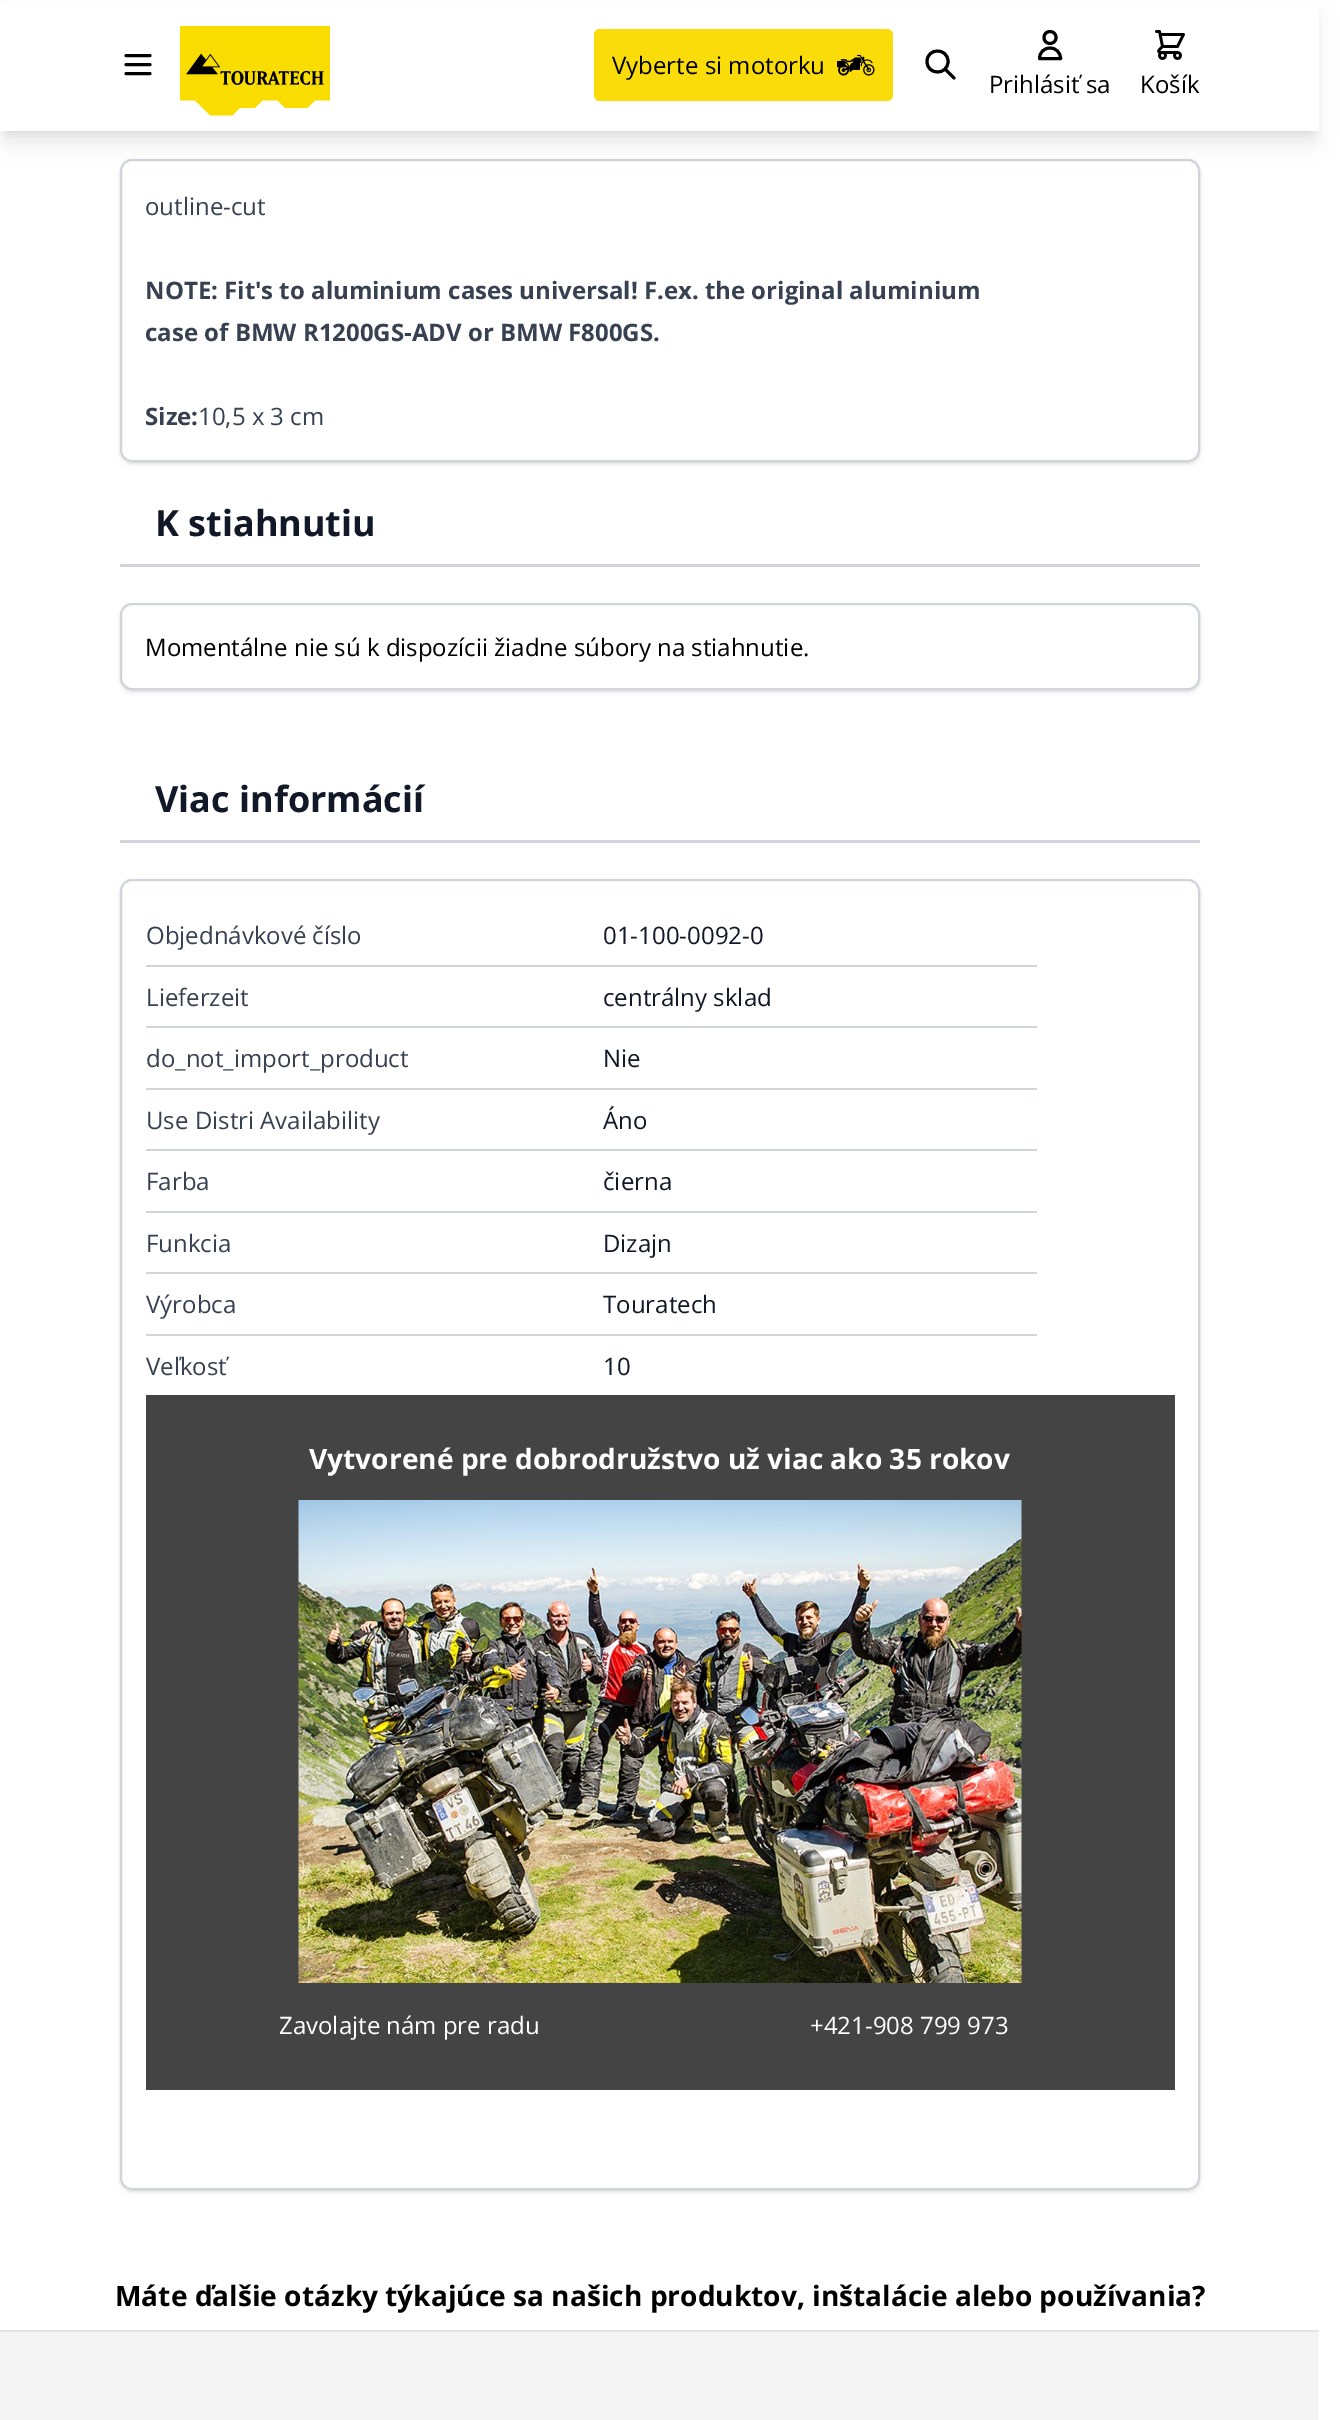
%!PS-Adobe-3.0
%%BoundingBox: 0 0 1340 2420
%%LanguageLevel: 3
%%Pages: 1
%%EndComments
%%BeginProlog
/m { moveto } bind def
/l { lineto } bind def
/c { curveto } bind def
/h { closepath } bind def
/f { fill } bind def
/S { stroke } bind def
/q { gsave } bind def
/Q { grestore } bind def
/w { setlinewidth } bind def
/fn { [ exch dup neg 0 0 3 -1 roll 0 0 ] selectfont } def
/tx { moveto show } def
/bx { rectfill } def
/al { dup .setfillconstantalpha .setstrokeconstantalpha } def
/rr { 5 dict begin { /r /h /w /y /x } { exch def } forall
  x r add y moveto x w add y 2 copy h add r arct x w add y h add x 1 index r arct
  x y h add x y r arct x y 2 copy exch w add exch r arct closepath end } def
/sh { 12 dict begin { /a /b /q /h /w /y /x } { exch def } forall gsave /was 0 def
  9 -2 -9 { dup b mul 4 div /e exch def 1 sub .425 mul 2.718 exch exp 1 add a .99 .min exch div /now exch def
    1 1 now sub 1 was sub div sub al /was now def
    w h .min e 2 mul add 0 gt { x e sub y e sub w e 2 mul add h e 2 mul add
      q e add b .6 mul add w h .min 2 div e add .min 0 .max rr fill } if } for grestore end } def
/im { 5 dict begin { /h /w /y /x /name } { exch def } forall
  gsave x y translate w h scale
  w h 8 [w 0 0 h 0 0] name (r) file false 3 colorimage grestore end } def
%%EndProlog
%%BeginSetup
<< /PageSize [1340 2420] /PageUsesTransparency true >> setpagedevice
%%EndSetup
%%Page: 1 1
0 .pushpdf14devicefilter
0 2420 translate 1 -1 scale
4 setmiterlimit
1 setgray
0 0 1340 2420 bx
0 setgray
6 11 1307 120 0 4.5 0.1 sh
122 162 1077 300 11 1.5 0.1 sh
120 161 1080 303 12 2 0.1 sh
1 setgray
121 160 1078 301 11 rr q f Q
0.82 0.835 0.859 setrgbcolor
2 w
S
0 setgray
5 18 1309 123 0 11 0.1 sh
1 setgray
0 2 1319 129 bx
0 setgray
3 w
1 setlinecap
1 setlinejoin
126 55.5 m 150 55.5 l 126 64.5 m 150 64.5 l 126 73.5 m 150 73.5 l S
(image0.raw) 180 26 150 90 im
0.976 0.863 0.039 setrgbcolor
594 29 299 72 6 rr f
/OpenSans-Regular 24 fn
0 setgray
(Vyberte si motorku) 612 74 tx
(image1.raw) 837 54 38 22 im
954 78 m 945 69 l 948 61.5 m 948 75.5 927 75.5 927 61.5 c 927 47.5 948 47.5 948 61.5 c h S
1056 37.5 m 1056 45.5 1044 45.5 1044 37.5 c 1044 29.5 1056 29.5 1056 37.5 c h 1050 48 m 1044 48 1039.5 52.5 1039.5 58.5 c 1060.5 58.5 l 1060.5 52.5 1056 48 1050 48 c h S
(Prihlásiť sa) 989 93 tx
(image2.raw) 1155 30 30 30 im
(Košík) 1140 93 tx
0.216 0.255 0.318 setrgbcolor
(outline-cut) 145 215 tx
/OpenSans-Bold 24 fn
(NOTE: Fit's to aluminium cases universal! F.ex. the original aluminium) 145 299 tx
(case of BMW R1200GS-ADV or BMW F800GS.) 145 341 tx
(Size:) 145 425 tx
/OpenSans-Regular 24 fn
(10,5 x 3 cm) 198 425 tx
0.82 0.835 0.859 setrgbcolor
120 564 1080 3 bx
/OpenSans-Bold 36 fn
0.067 0.094 0.153 setrgbcolor
(K stiahnutiu) 155 536 tx
0 setgray
122 606 1077 84 11 1.5 0.1 sh
120 605 1080 87 12 2 0.1 sh
1 setgray
121 604 1078 85 11 rr q f Q
0.82 0.835 0.859 setrgbcolor
2 w
0 setlinecap
0 setlinejoin
S
/OpenSans-Regular 24 fn
0 setgray
(Momentálne nie sú k dispozícii žiadne súbory na stiahnutie.) 145 656 tx
0.82 0.835 0.859 setrgbcolor
120 840 1080 3 bx
/OpenSans-Bold 36 fn
0.067 0.094 0.153 setrgbcolor
(Viac informácií) 155 812 tx
0 setgray
122 882 1077 1308 11 1.5 0.1 sh
120 881 1080 1311 12 2 0.1 sh
1 setgray
121 880 1078 1309 11 rr q f Q
0.82 0.835 0.859 setrgbcolor
S
146 965 891 2 bx
/OpenSans-Regular 24 fn
0.216 0.255 0.318 setrgbcolor
(Objednávkové číslo) 146 944 tx
0.067 0.094 0.153 setrgbcolor
(01-100-0092-0) 603 944 tx
0.82 0.835 0.859 setrgbcolor
146 1026 891 2 bx
0.216 0.255 0.318 setrgbcolor
(Lieferzeit) 146 1006 tx
0.067 0.094 0.153 setrgbcolor
(centrálny sklad) 603 1006 tx
0.82 0.835 0.859 setrgbcolor
146 1088 891 2 bx
0.216 0.255 0.318 setrgbcolor
(do_not_import_product) 146 1067 tx
0.067 0.094 0.153 setrgbcolor
(Nie) 603 1067 tx
0.82 0.835 0.859 setrgbcolor
146 1149 891 2 bx
0.216 0.255 0.318 setrgbcolor
(Use Distri Availability) 146 1129 tx
0.067 0.094 0.153 setrgbcolor
(Áno) 603 1129 tx
0.82 0.835 0.859 setrgbcolor
146 1211 891 2 bx
0.216 0.255 0.318 setrgbcolor
(Farba) 146 1190 tx
0.067 0.094 0.153 setrgbcolor
(čierna) 603 1190 tx
0.82 0.835 0.859 setrgbcolor
146 1272 891 2 bx
0.216 0.255 0.318 setrgbcolor
(Funkcia) 146 1252 tx
0.067 0.094 0.153 setrgbcolor
(Dizajn) 603 1252 tx
0.82 0.835 0.859 setrgbcolor
146 1334 891 2 bx
0.216 0.255 0.318 setrgbcolor
(Výrobca) 146 1313 tx
0.067 0.094 0.153 setrgbcolor
(Touratech) 603 1313 tx
0.216 0.255 0.318 setrgbcolor
(Veľkosť) 146 1375 tx
0.067 0.094 0.153 setrgbcolor
(10) 603 1375 tx
0.267 setgray
146 1395 1029 695 bx
/OpenSans-Bold 28.1 fn
1 setgray
(Vytvorené pre dobrodružstvo už viac ako 35 rokov) 309 1469 tx
(image3.raw) 298 1500 724 483 im
/OpenSans-Regular 24 fn
(Zavolajte nám pre radu) 279 2034 tx
(+421-908 799 973) 810 2034 tx
/OpenSans-Bold 28.1 fn
0 setgray
(Máte ďalšie otázky týkajúce sa našich produktov, inštalácie alebo používania?) 115 2306 tx
0.957 0.957 0.961 setrgbcolor
0 2332 1319 88 bx
0.894 0.894 0.906 setrgbcolor
0 2330 1319 2 bx
.poppdf14devicefilter showpage
%%EOF
